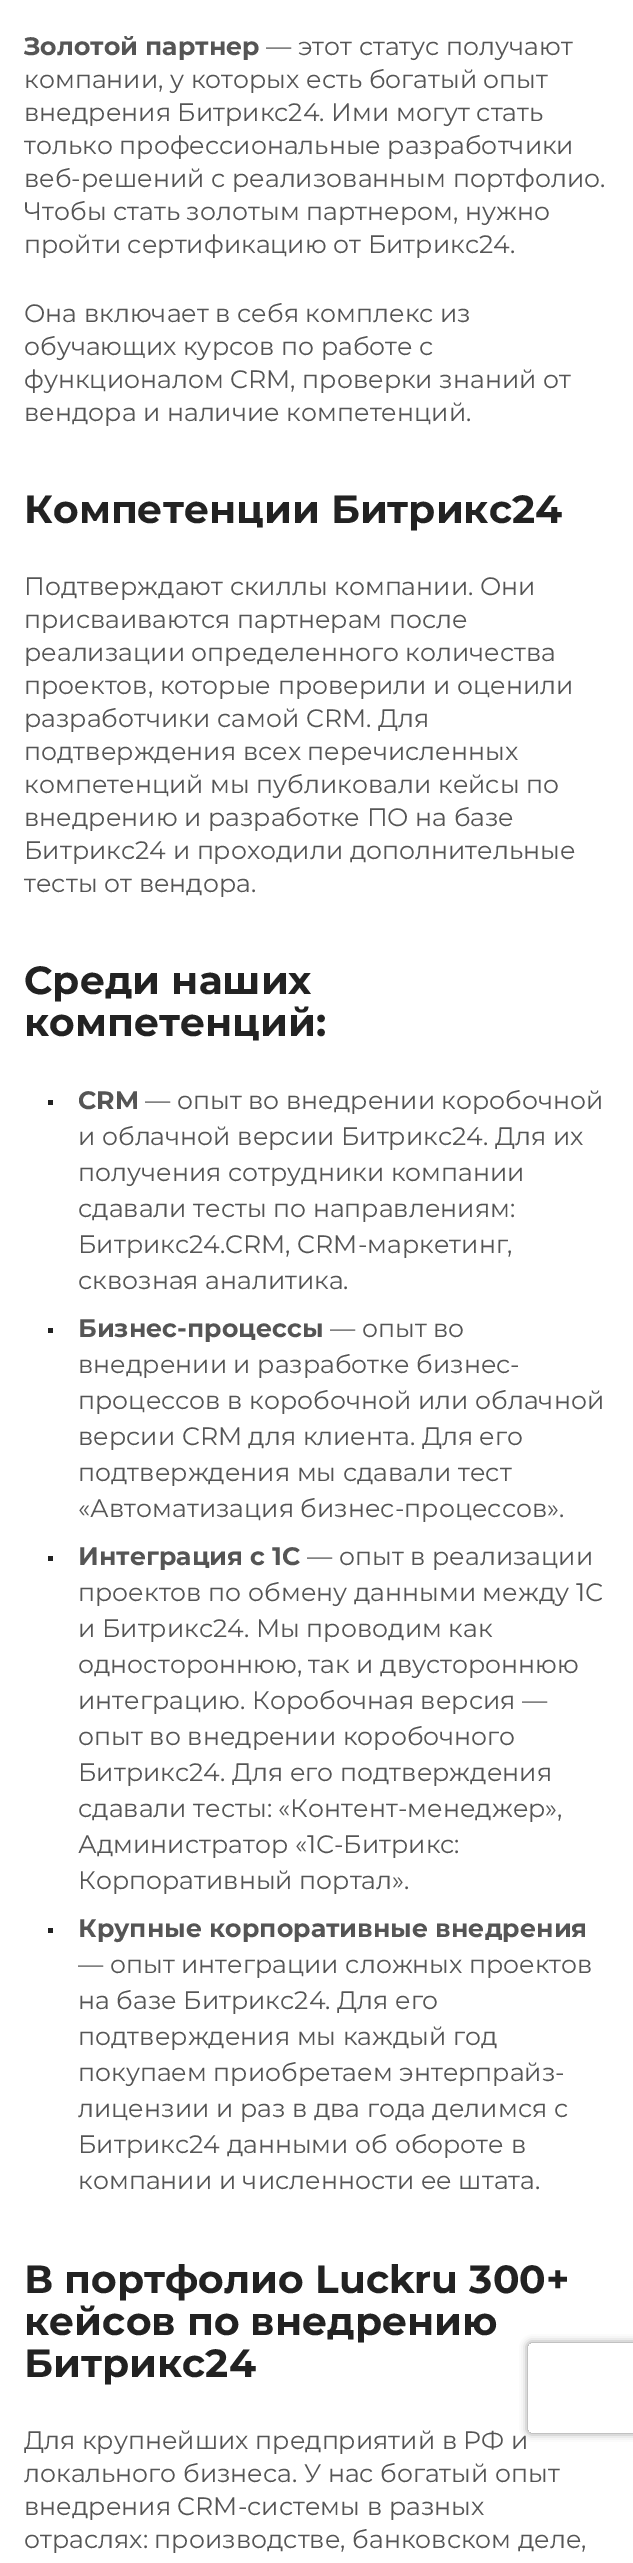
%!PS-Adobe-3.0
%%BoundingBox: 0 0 633 2563
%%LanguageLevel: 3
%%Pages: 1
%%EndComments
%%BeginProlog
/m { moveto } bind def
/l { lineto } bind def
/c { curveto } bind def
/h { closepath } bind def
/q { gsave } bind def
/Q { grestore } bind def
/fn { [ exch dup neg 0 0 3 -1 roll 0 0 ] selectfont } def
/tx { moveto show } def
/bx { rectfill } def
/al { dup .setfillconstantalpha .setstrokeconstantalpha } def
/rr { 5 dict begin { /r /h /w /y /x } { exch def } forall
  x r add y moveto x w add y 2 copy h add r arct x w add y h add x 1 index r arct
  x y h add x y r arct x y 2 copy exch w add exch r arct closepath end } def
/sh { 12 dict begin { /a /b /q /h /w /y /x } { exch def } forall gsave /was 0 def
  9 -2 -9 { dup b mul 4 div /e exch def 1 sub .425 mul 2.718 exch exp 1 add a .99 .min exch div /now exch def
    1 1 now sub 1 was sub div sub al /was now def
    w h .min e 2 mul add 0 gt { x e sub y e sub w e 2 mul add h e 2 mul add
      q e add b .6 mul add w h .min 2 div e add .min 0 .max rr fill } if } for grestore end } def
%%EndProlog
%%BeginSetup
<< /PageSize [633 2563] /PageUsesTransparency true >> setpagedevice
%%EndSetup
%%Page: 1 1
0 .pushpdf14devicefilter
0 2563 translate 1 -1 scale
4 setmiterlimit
1 setgray
0 0 633 2563 bx
/Montserrat-Bold 25.2 fn
0.333 setgray
(Золотой партнер) 24 55 tx
/Montserrat-Regular 25.2 fn
(— этот статус получают) 266 55 tx
(компании, у которых есть богатый опыт) 24 88 tx
(внедрения Битрикс24. Ими могут стать) 24 121 tx
(только профессиональные разработчики) 24 154 tx
(веб-решений с реализованным портфолио.) 24 187 tx
(Чтобы стать золотым партнером, нужно) 24 220 tx
(пройти сертификацию от Битрикс24.) 24 253 tx
(Она включает в себя комплекс из) 24 322 tx
(обучающих курсов по работе с) 24 355 tx
(функционалом CRM, проверки знаний от) 24 388 tx
(вендора и наличие компетенций.) 24 421 tx
/Montserrat-Bold 39.25 fn
0.133 setgray
(Компетенции Битрикс24) 24 523 tx
/Montserrat-Regular 25.2 fn
0.333 setgray
(Подтверждают скиллы компании. Они) 24 595 tx
(присваиваются партнерам после) 24 628 tx
(реализации определенного количества) 24 661 tx
(проектов, которые проверили и оценили) 24 694 tx
(разработчики самой CRM. Для) 24 727 tx
(подтверждения всех перечисленных) 24 760 tx
(компетенций мы публиковали кейсы по) 24 793 tx
(внедрению и разработке ПО на базе) 24 826 tx
(Битрикс24 и проходили дополнительные) 24 859 tx
(тесты от вендора.) 24 892 tx
/Montserrat-Bold 39.25 fn
0.133 setgray
(Среди наших) 24 994 tx
(компетенций:) 24 1036 tx
48 1100 5 5 bx
/Montserrat-Bold 25.2 fn
0.333 setgray
(CRM) 78 1109 tx
/Montserrat-Regular 25.2 fn
(— опыт во внедрении коробочной) 145 1109 tx
(и облачной версии Битрикс24. Для их) 78 1145 tx
(получения сотрудники компании) 78 1181 tx
(сдавали тесты по направлениям:) 78 1217 tx
(Битрикс24.CRM, CRM-маркетинг,) 78 1253 tx
(сквозная аналитика.) 78 1289 tx
0.133 setgray
48 1328 5 5 bx
/Montserrat-Bold 25.2 fn
0.333 setgray
(Бизнес-процессы) 78 1337 tx
/Montserrat-Regular 25.2 fn
(— опыт во) 330 1337 tx
(внедрении и разработке бизнес-) 78 1373 tx
(процессов в коробочной или облачной) 78 1409 tx
(версии CRM для клиента. Для его) 78 1445 tx
(подтверждения мы сдавали тест) 78 1481 tx
(«Автоматизация бизнес-процессов».) 78 1517 tx
0.133 setgray
48 1556 5 5 bx
/Montserrat-Bold 25.2 fn
0.333 setgray
(Интеграция с 1С) 78 1565 tx
/Montserrat-Regular 25.2 fn
(— опыт в реализации) 307 1565 tx
(проектов по обмену данными между 1С) 78 1601 tx
(и Битрикс24. Мы проводим как) 78 1637 tx
(одностороннюю, так и двустороннюю) 78 1673 tx
(интеграцию. Коробочная версия —) 78 1709 tx
(опыт во внедрении коробочного) 78 1745 tx
(Битрикс24. Для его подтверждения) 78 1781 tx
(сдавали тесты: «Контент-менеджер»,) 78 1817 tx
(Администратор «1С-Битрикс:) 78 1853 tx
(Корпоративный портал».) 78 1889 tx
0.133 setgray
48 1928 5 5 bx
/Montserrat-Bold 25.2 fn
0.333 setgray
(Крупные корпоративные внедрения) 78 1937 tx
/Montserrat-Regular 25.2 fn
(— опыт интеграции сложных проектов) 78 1973 tx
(на базе Битрикс24. Для его) 78 2009 tx
(подтверждения мы каждый год) 78 2045 tx
(покупаем приобретаем энтерпрайз-) 78 2081 tx
(лицензии и раз в два года делимся с) 78 2117 tx
(Битрикс24 данными об обороте в) 78 2153 tx
(компании и численности ее штата.) 78 2189 tx
/Montserrat-Bold 39.25 fn
0.133 setgray
(В портфолио Luckru 300+) 24 2293 tx
(кейсов по внедрению) 24 2335 tx
(Битрикс24) 24 2377 tx
/Montserrat-Regular 25.2 fn
0.333 setgray
(Для крупнейших предприятий в РФ и) 24 2449 tx
(локального бизнеса. У нас богатый опыт) 24 2482 tx
(внедрения CRM-системы в разных) 24 2515 tx
(отраслях: производстве, банковском деле,) 24 2548 tx
q
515 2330 m 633 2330 l 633 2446 l 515 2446 l h 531 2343 m 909 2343 l 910.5 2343 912 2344.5 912 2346 c 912 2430 l 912 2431.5 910.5 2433 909 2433 c 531 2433 l 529.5 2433 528 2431.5 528 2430 c 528 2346 l 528 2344.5 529.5 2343 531 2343 c h eoclip newpath
0.502 setgray
528 2343 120 90 3 4 1 sh
Q
.poppdf14devicefilter showpage
%%EOF
